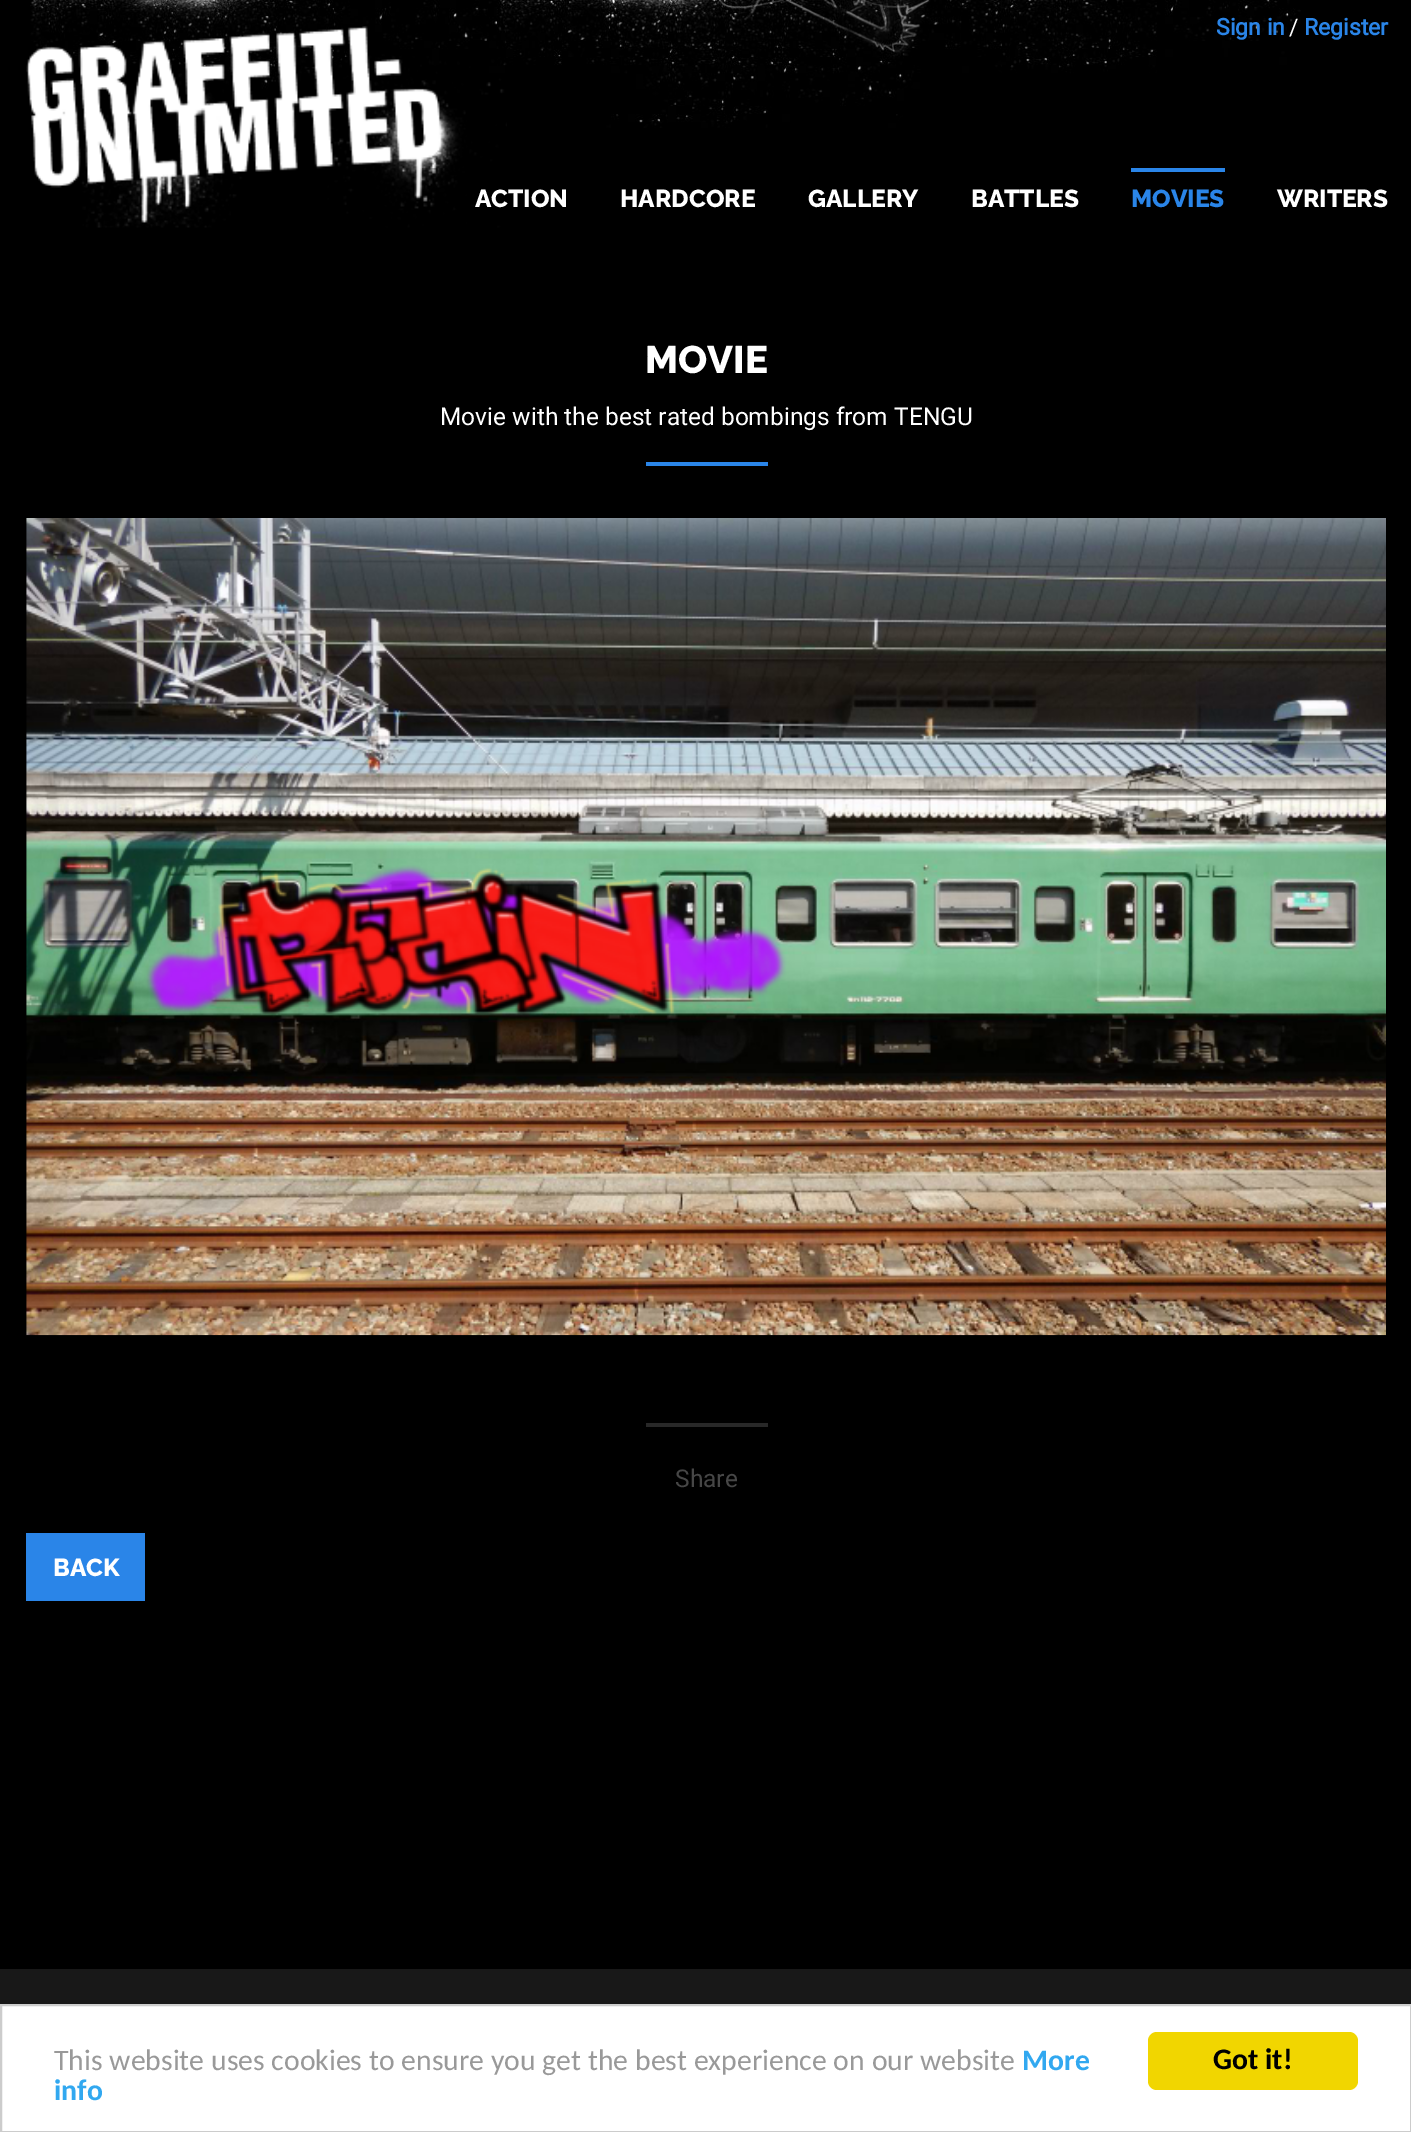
%!PS-Adobe-3.0
%%BoundingBox: 0 0 1411 2132
%%LanguageLevel: 3
%%Pages: 1
%%EndComments
%%BeginProlog
/m { moveto } bind def
/l { lineto } bind def
/h { closepath } bind def
/f { fill } bind def
/S { stroke } bind def
/q { gsave } bind def
/Q { grestore } bind def
/w { setlinewidth } bind def
/fn { [ exch dup neg 0 0 3 -1 roll 0 0 ] selectfont } def
/tx { moveto show } def
/bx { rectfill } def
/al { dup .setfillconstantalpha .setstrokeconstantalpha } def
/rr { 5 dict begin { /r /h /w /y /x } { exch def } forall
  x r add y moveto x w add y 2 copy h add r arct x w add y h add x 1 index r arct
  x y h add x y r arct x y 2 copy exch w add exch r arct closepath end } def
/im { 5 dict begin { /h /w /y /x /name } { exch def } forall
  gsave x y translate w h scale
  w h 8 [w 0 0 h 0 0] name (r) file false 3 colorimage grestore end } def
%%EndProlog
%%BeginSetup
<< /PageSize [1411 2132] /PageUsesTransparency true >> setpagedevice
%%EndSetup
%%Page: 1 1
0 .pushpdf14devicefilter
0 2132 translate 1 -1 scale
4 setmiterlimit
0 setgray
0 0 1411 2132 bx
(image0.raw) 30 0 1271 128 im
(image1.raw) 26 26 481 202 im
/Roboto-Bold 23 fn
0.165 0.522 0.91 setrgbcolor
(Sign in) 1216 35 tx
/Roboto-Regular 23 fn
1 setgray
(/) 1289 35 tx
/Roboto-Bold 23 fn
0.165 0.522 0.91 setrgbcolor
(Register) 1304 35 tx
0.3 al
0 setgray
422 168 31 39 bx
/Raleway-ExtraBold 24.5 fn
1 al
1 setgray
(ACTION) 475 207 tx
(HARDCORE) 620 207 tx
(GALLERY) 808 207 tx
(BATTLES) 971 207 tx
0.165 0.522 0.91 setrgbcolor
1131 168 94 4 bx
(MOVIES) 1131 207 tx
1 setgray
(WRITERS) 1277 207 tx
/Raleway-ExtraBold 38.5 fn
(MOVIE) 645 373 tx
/Roboto-Regular 24.5 fn
(Movie with the best rated bombings from TENGU) 440 425 tx
0.165 0.522 0.91 setrgbcolor
646 462 122 4 bx
(image2.raw) 26 518 1360 818 im
0.157 setgray
646 1423 122 4 bx
0.275 setgray
(Share) 675 1487 tx
0.165 0.522 0.91 setrgbcolor
26 1533 119 68 bx
/Raleway-ExtraBold 24.5 fn
1 setgray
(BACK) 53 1576 tx
0.094 setgray
0 1969 1411 35 bx
1 setgray
1 2005 m 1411 2005 l 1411 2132 l 1 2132 l h q f Q
0.8 setgray
2 w
S
/Carlito-Regular 29.75 fn
0.6 setgray
(This website uses cookies to ensure you get the best experience on our website) 54 2070 tx
/Carlito-Bold 29.75 fn
0.192 0.659 0.941 setrgbcolor
(More) 1022 2070 tx
(info) 54 2100 tx
0.945 0.839 0 setrgbcolor
1148 2032 210 58 9 rr f
0 setgray
(Got it!) 1213 2069 tx
.poppdf14devicefilter showpage
%%EOF
